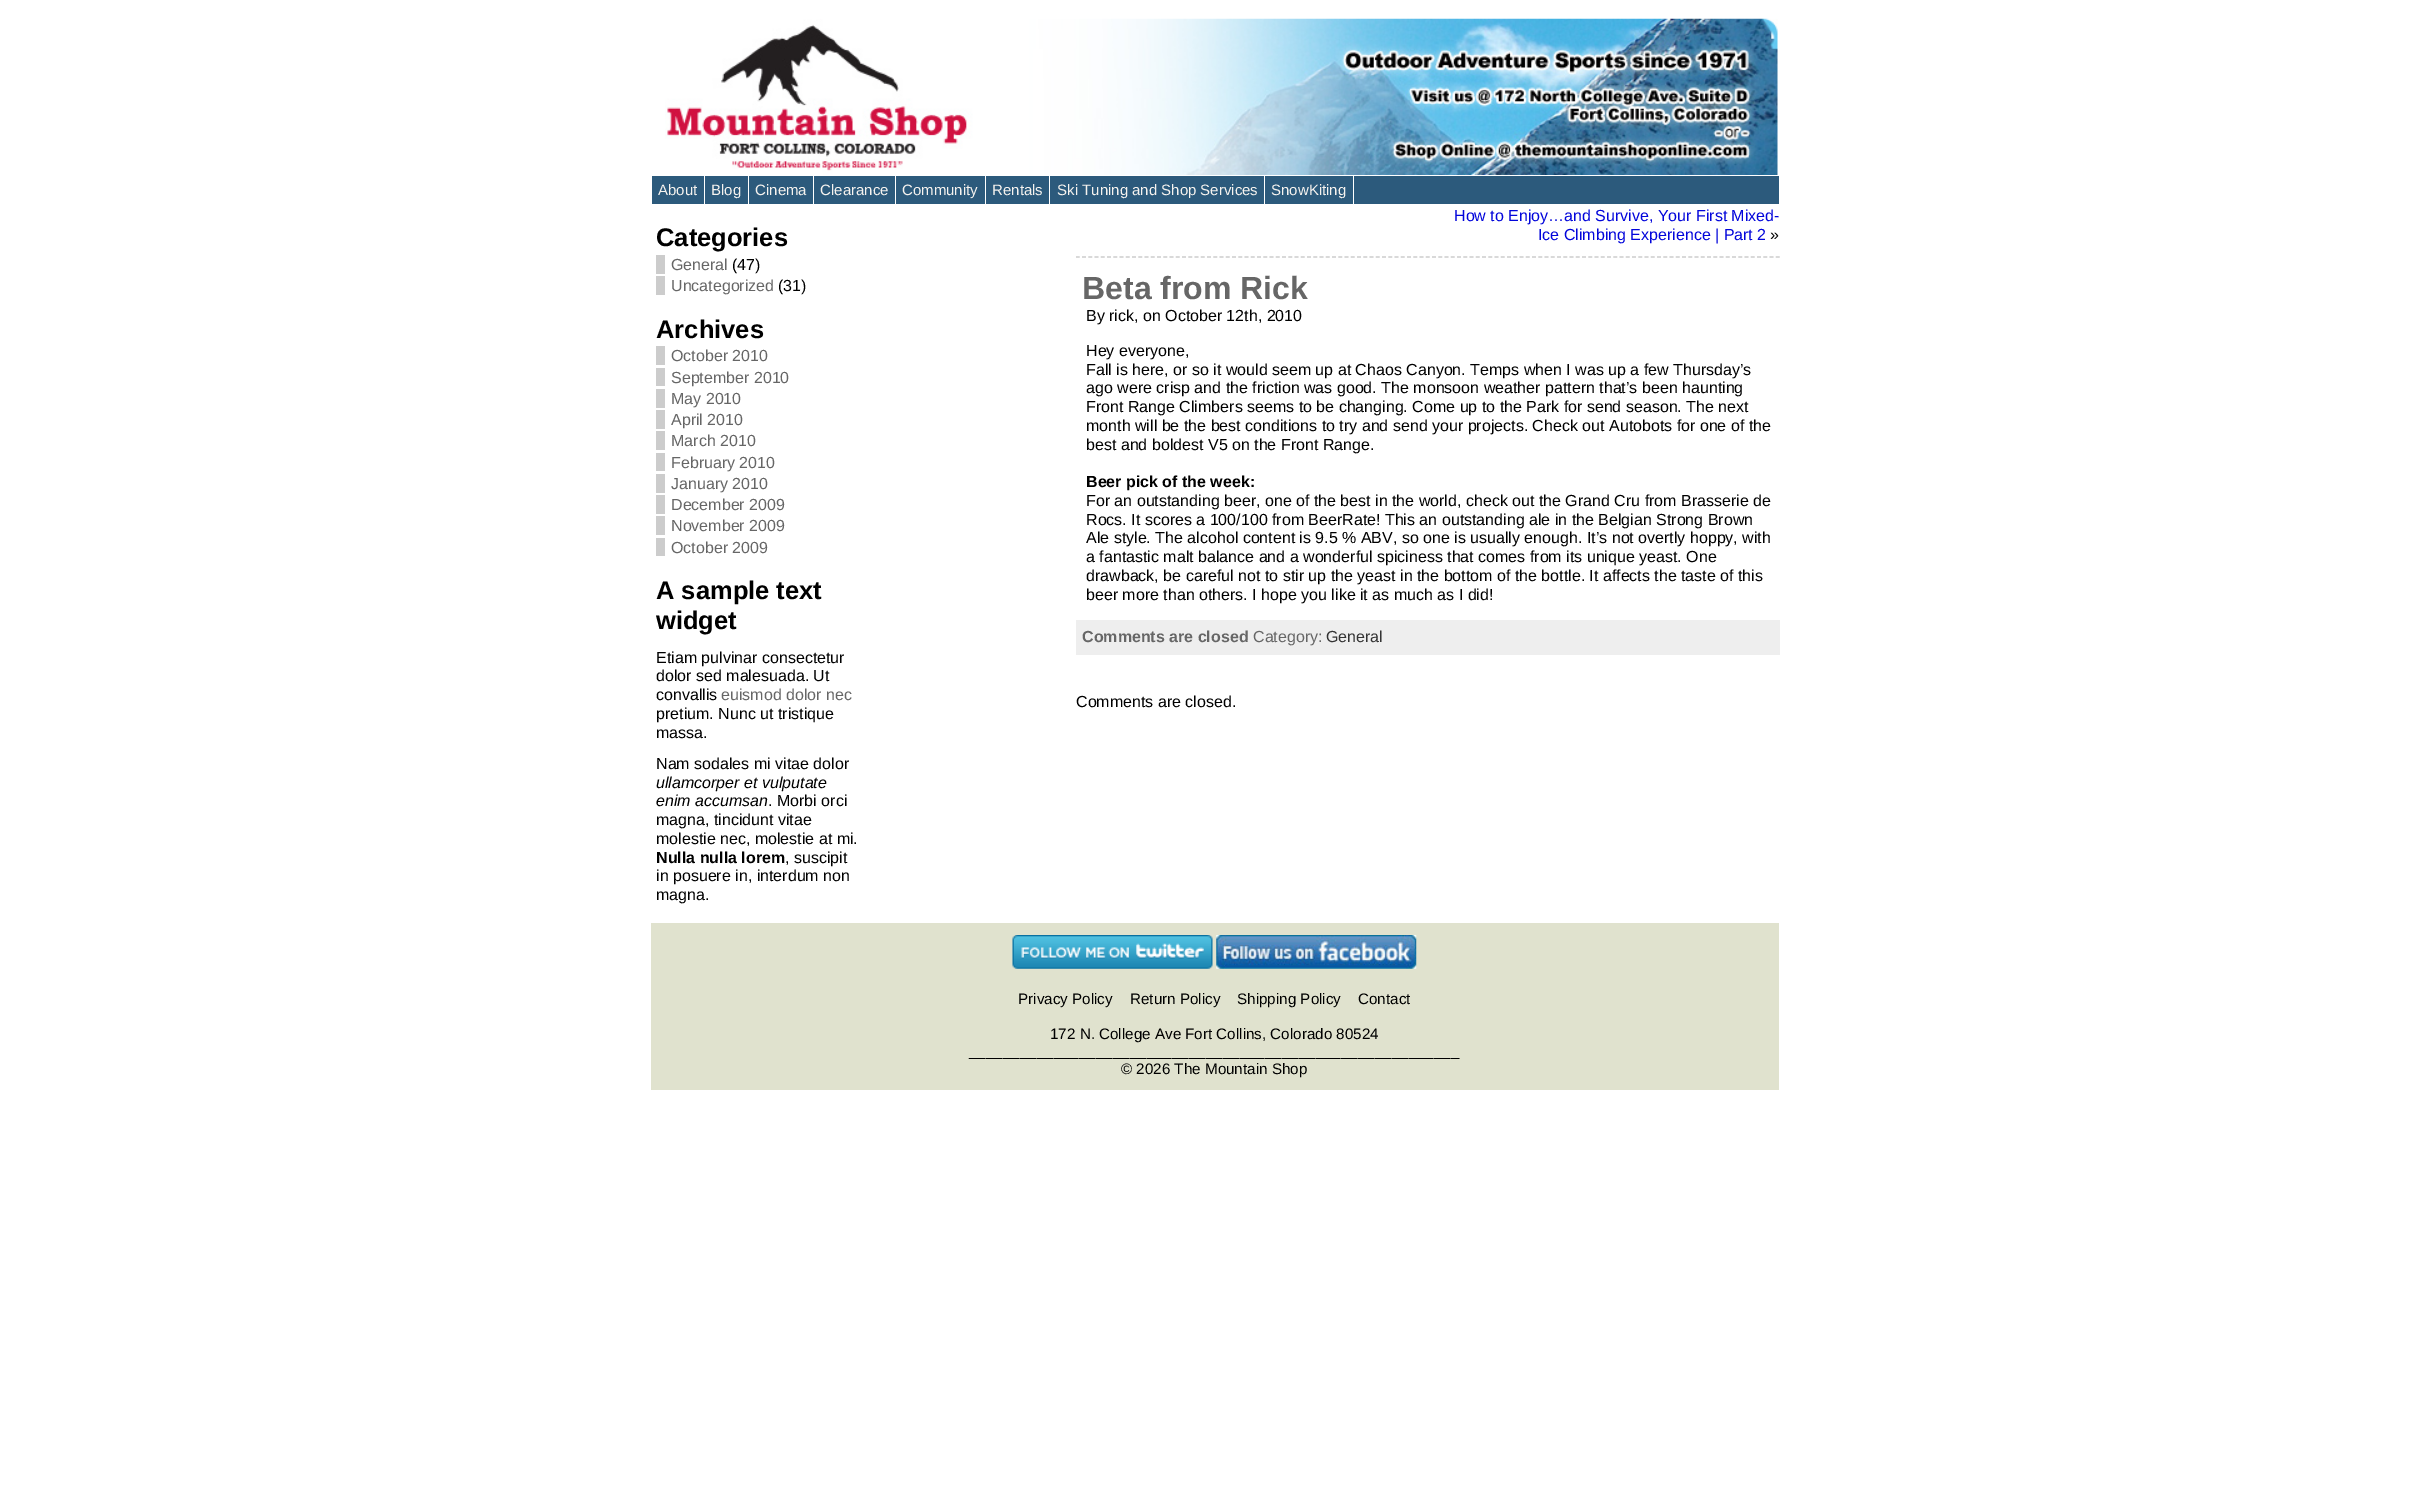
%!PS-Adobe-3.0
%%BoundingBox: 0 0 2428 1493
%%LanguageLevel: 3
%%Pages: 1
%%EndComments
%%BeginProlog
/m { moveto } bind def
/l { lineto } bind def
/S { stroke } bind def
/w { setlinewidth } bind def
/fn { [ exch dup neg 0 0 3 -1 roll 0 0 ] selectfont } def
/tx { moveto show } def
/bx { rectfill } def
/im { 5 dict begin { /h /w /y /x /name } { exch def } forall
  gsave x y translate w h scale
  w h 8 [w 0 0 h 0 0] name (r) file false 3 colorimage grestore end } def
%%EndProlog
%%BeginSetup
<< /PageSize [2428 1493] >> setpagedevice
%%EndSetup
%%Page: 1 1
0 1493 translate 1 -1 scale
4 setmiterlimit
1 setgray
0 0 2428 1493 bx
(image0.raw) 665 18 1113 157 im
0.173 0.353 0.486 setrgbcolor
1354 176 425 28 bx
652 176 52 28 bx
/LiberationSans-Regular 15 fn
0.965 0.953 0.937 setrgbcolor
(About) 658 195 tx
0.173 0.353 0.486 setrgbcolor
705 176 43 28 bx
0.965 0.953 0.937 setrgbcolor
(Blog) 711 195 tx
0.173 0.353 0.486 setrgbcolor
749 176 64 28 bx
0.965 0.953 0.937 setrgbcolor
(Cinema) 755 195 tx
0.173 0.353 0.486 setrgbcolor
814 176 81 28 bx
0.965 0.953 0.937 setrgbcolor
(Clearance) 820 195 tx
0.173 0.353 0.486 setrgbcolor
896 176 89 28 bx
0.965 0.953 0.937 setrgbcolor
(Community) 902 195 tx
0.173 0.353 0.486 setrgbcolor
986 176 63 28 bx
0.965 0.953 0.937 setrgbcolor
(Rentals) 992 195 tx
0.173 0.353 0.486 setrgbcolor
1050 176 214 28 bx
0.965 0.953 0.937 setrgbcolor
(Ski Tuning and Shop Services) 1057 195 tx
0.173 0.353 0.486 setrgbcolor
1265 176 88 28 bx
0.965 0.953 0.937 setrgbcolor
(SnowKiting) 1271 195 tx
/LiberationSans-Bold 25.5 fn
0 setgray
(Categories) 656 246 tx
/LiberationSans-Regular 16 fn
0.4 setgray
(General) 671 270 tx
0.8 setgray
656 255 9 19 bx
0 setgray
(\(47\)) 732 270 tx
0.4 setgray
(Uncategorized) 671 291 tx
0.8 setgray
656 276 9 19 bx
0 setgray
(\(31\)) 778 291 tx
/LiberationSans-Bold 25.5 fn
(Archives) 656 338 tx
0.8 setgray
656 346 9 19 bx
/LiberationSans-Regular 16 fn
0.4 setgray
(October 2010) 671 361 tx
0.8 setgray
656 368 9 18 bx
0.4 setgray
(September 2010) 671 383 tx
0.8 setgray
656 389 9 19 bx
0.4 setgray
(May 2010) 671 404 tx
0.8 setgray
656 410 9 19 bx
0.4 setgray
(April 2010) 671 425 tx
0.8 setgray
656 431 9 19 bx
0.4 setgray
(March 2010) 671 446 tx
0.8 setgray
656 453 9 18 bx
0.4 setgray
(February 2010) 671 468 tx
0.8 setgray
656 474 9 19 bx
0.4 setgray
(January 2010) 671 489 tx
0.8 setgray
656 495 9 19 bx
0.4 setgray
(December 2009) 671 510 tx
0.8 setgray
656 516 9 19 bx
0.4 setgray
(November 2009) 671 531 tx
0.8 setgray
656 538 9 18 bx
0.4 setgray
(October 2009) 671 553 tx
/LiberationSans-Bold 25.5 fn
0 setgray
(A sample text) 656 599 tx
(widget) 656 629 tx
/LiberationSans-Regular 16 fn
(Etiam pulvinar consectetur) 656 663 tx
(dolor sed malesuada. Ut) 656 681 tx
(convallis) 656 700 tx
0.4 setgray
(euismod dolor nec) 721 700 tx
0 setgray
(pretium. Nunc ut tristique) 656 719 tx
(massa.) 656 738 tx
(Nam sodales mi vitae dolor) 656 769 tx
/LiberationSans-Italic 16 fn
(ullamcorper et vulputate) 656 788 tx
(enim accumsan) 656 806 tx
/LiberationSans-Regular 16 fn
(. Morbi orci) 768 806 tx
(magna, tincidunt vitae) 656 825 tx
(molestie nec, molestie at mi.) 656 844 tx
/LiberationSans-Bold 16 fn
(Nulla nulla lorem) 656 863 tx
/LiberationSans-Regular 16 fn
(, suscipit) 785 863 tx
(in posuere in, interdum non) 656 881 tx
(magna.) 656 900 tx
0.8 setgray
1.2 w
[3.75 2.5] 0 setdash
1076 257 m 1780 257 l S
0.008 0.02 0.859 setrgbcolor
(How to Enjoy…and Survive, Your First Mixed-) 1454 221 tx
(Ice Climbing Experience | Part 2) 1538 240 tx
0 setgray
(») 1770 240 tx
/LiberationSans-Bold 32 fn
0.4 setgray
(Beta from Rick) 1082 299 tx
/LiberationSans-Regular 16 fn
0 setgray
(By rick, on October 12th, 2010) 1086 321 tx
(Hey everyone,) 1086 356 tx
(Fall is here, or so it would seem up at Chaos Canyon. Temps when I was up a few Thursday’s) 1086 375 tx
(ago were crisp and the friction was good. The monsoon weather pattern that’s been haunting) 1086 393 tx
(Front Range Climbers seems to be changing. Come up to the Park for send season. The next) 1086 412 tx
(month will be the best conditions to try and send your projects. Check out Autobots for one of the) 1086 431 tx
(best and boldest V5 on the Front Range.) 1086 450 tx
/LiberationSans-Bold 16 fn
(Beer pick of the week:) 1086 487 tx
/LiberationSans-Regular 16 fn
(For an outstanding beer, one of the best in the world, check out the Grand Cru from Brasserie de) 1086 506 tx
(Rocs. It scores a 100/100 from BeerRate! This an outstanding ale in the Belgian Strong Brown) 1086 525 tx
(Ale style. The alcohol content is 9.5 % ABV, so one is usually enough. It’s not overtly hoppy, with) 1086 543 tx
(a fantastic malt balance and a wonderful spiciness that comes from its unique yeast. One) 1086 562 tx
(drawback, be careful not to stir up the yeast in the bottom of the bottle. It affects the taste of this) 1086 581 tx
(beer more than others. I hope you like it as much as I did!) 1086 600 tx
0.933 setgray
1076 620 704 35 bx
/LiberationSans-Bold 16 fn
0.4 setgray
(Comments are closed) 1082 642 tx
/LiberationSans-Regular 16 fn
(Category:) 1253 642 tx
0.2 setgray
(General) 1326 642 tx
0 setgray
(Comments are closed.) 1076 707 tx
0.878 0.886 0.808 setrgbcolor
651 923 1128 167 bx
(image1.raw) 1012 935 201 34 im
(image2.raw) 1216 935 201 34 im
/LiberationSans-Regular 15.2 fn
0 setgray
(Privacy Policy) 1018 1004 tx
(Return Policy) 1130 1004 tx
(Shipping Policy) 1237 1004 tx
(Contact) 1358 1004 tx
(172 N. College Ave Fort Collins, Colorado 80524) 1050 1039 tx
(__________________________________________________________) 969 1056 tx
(© 2026 The Mountain Shop) 1121 1074 tx
showpage
%%EOF
